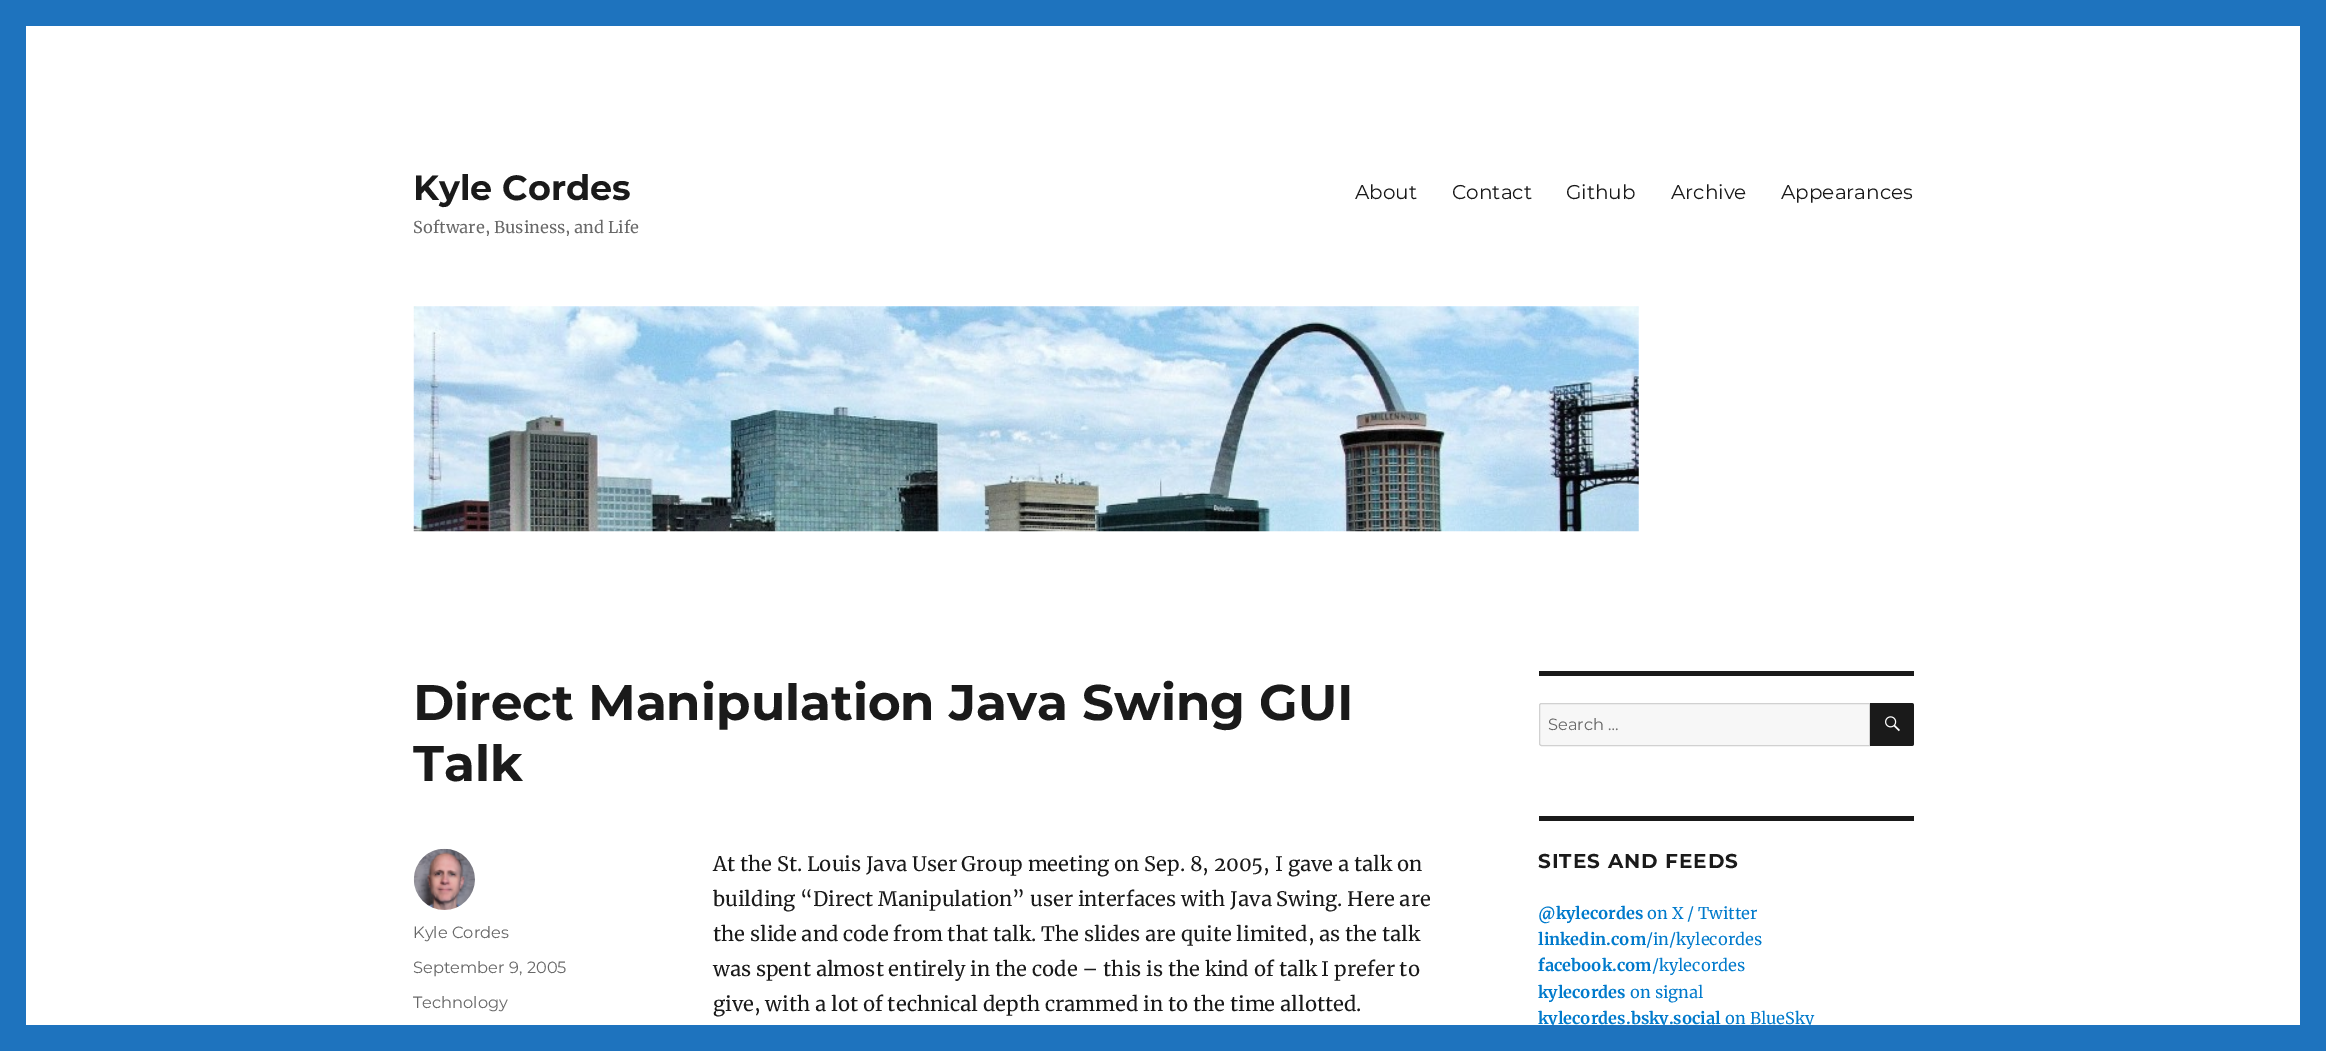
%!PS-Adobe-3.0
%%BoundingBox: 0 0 2326 1051
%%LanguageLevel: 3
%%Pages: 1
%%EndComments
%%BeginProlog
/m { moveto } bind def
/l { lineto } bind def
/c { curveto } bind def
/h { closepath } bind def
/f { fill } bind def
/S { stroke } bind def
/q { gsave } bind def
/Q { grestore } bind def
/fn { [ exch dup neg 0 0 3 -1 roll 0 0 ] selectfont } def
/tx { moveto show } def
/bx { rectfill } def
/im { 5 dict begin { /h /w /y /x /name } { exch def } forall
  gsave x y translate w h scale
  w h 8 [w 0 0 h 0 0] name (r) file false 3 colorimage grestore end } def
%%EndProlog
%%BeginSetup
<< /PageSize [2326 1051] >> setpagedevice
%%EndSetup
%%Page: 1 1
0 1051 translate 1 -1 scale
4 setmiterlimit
0.118 0.451 0.745 setrgbcolor
0 0 2326 1051 bx
1 setgray
26 26 2274 999 bx
/Montserrat-Thin 35 fn
0.102 setgray
(Kyle Cordes) 413 200 tx
q
414 166 226 70 rectclip
/Merriweather-Regular 16.25 fn
0.408 setgray
(Software, Business, and Life) 413 233 tx
Q
/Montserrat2-Thin 20 fn
(About) 1355 199 tx
(Contact) 1452 199 tx
(Github) 1566 199 tx
(Archive) 1671 199 tx
(Appearances) 1781 199 tx
(image0.raw) 413 306 1226 226 im
/Montserrat-Thin 50 fn
(Direct Manipulation Java Swing GUI) 413 720 tx
(Talk) 413 781 tx
(image1.raw) 413 848 62 62 im
/Montserrat2-Thin 16.25 fn
0.408 setgray
(Kyle Cordes) 413 938 tx
(September 9, 2005) 413 973 tx
(Technology) 413 1008 tx
/Merriweather-Regular 20 fn
0.102 setgray
(At the St. Louis Java User Group meeting on Sep. 8, 2005, I gave a talk on) 713 871 tx
(building “Direct Manipulation” user interfaces with Java Swing. Here are) 713 906 tx
(the slide and code from that talk. The slides are quite limited, as the talk) 713 941 tx
(was spent almost entirely in the code – this is the kind of talk I prefer to) 713 976 tx
(give, with a lot of technical depth crammed in to the time allotted.) 713 1011 tx
1539 671 375 5 bx
0.969 setgray
1541.5 703.5 m 1869.5 703.5 l 1869.5 745.5 l 1541.5 745.5 l 1540.5 745.5 1539.5 744.5 1539.5 743.5 c 1539.5 705.5 l 1539.5 704.5 1540.5 703.5 1541.5 703.5 c h q f Q
0.82 setgray
S
/Montserrat2-Thin 16.25 fn
0.408 setgray
(Search …) 1548 730 tx
0.102 setgray
1870 703 m 1911.5 703 l 1913 703 1914 704 1914 705.5 c 1914 743.5 l 1914 745 1913 746 1911.5 746 c 1870 746 l h f
(image2.raw) 1885 716 15 16 im
1539 816 375 5 bx
/Montserrat-Thin 20 fn
1538 868 m 1 0 (SITES AND FEEDS) ashow
/Merriweather-Bold 16.25 fn
0 0.478 0.8 setrgbcolor
(@kylecordes) 1538 919 tx
/Merriweather-Regular 16.25 fn
(on X / Twitter) 1647 919 tx
/Merriweather-Bold 16.25 fn
(linkedin.com) 1538 945 tx
/Merriweather-Regular 16.25 fn
(/in/kylecordes) 1646 945 tx
/Merriweather-Bold 16.25 fn
(facebook.com) 1538 971 tx
/Merriweather-Regular 16.25 fn
(/kylecordes) 1652 971 tx
/Merriweather-Bold 16.25 fn
(kylecordes) 1538 998 tx
/Merriweather-Regular 16.25 fn
(on signal) 1630 998 tx
/Merriweather-Bold 16.25 fn
(kylecordes.bsky.social) 1538 1024 tx
/Merriweather-Regular 16.25 fn
(on BlueSky) 1725 1024 tx
0.118 0.451 0.745 setrgbcolor
1549 1025 261 3 bx
showpage
%%EOF
